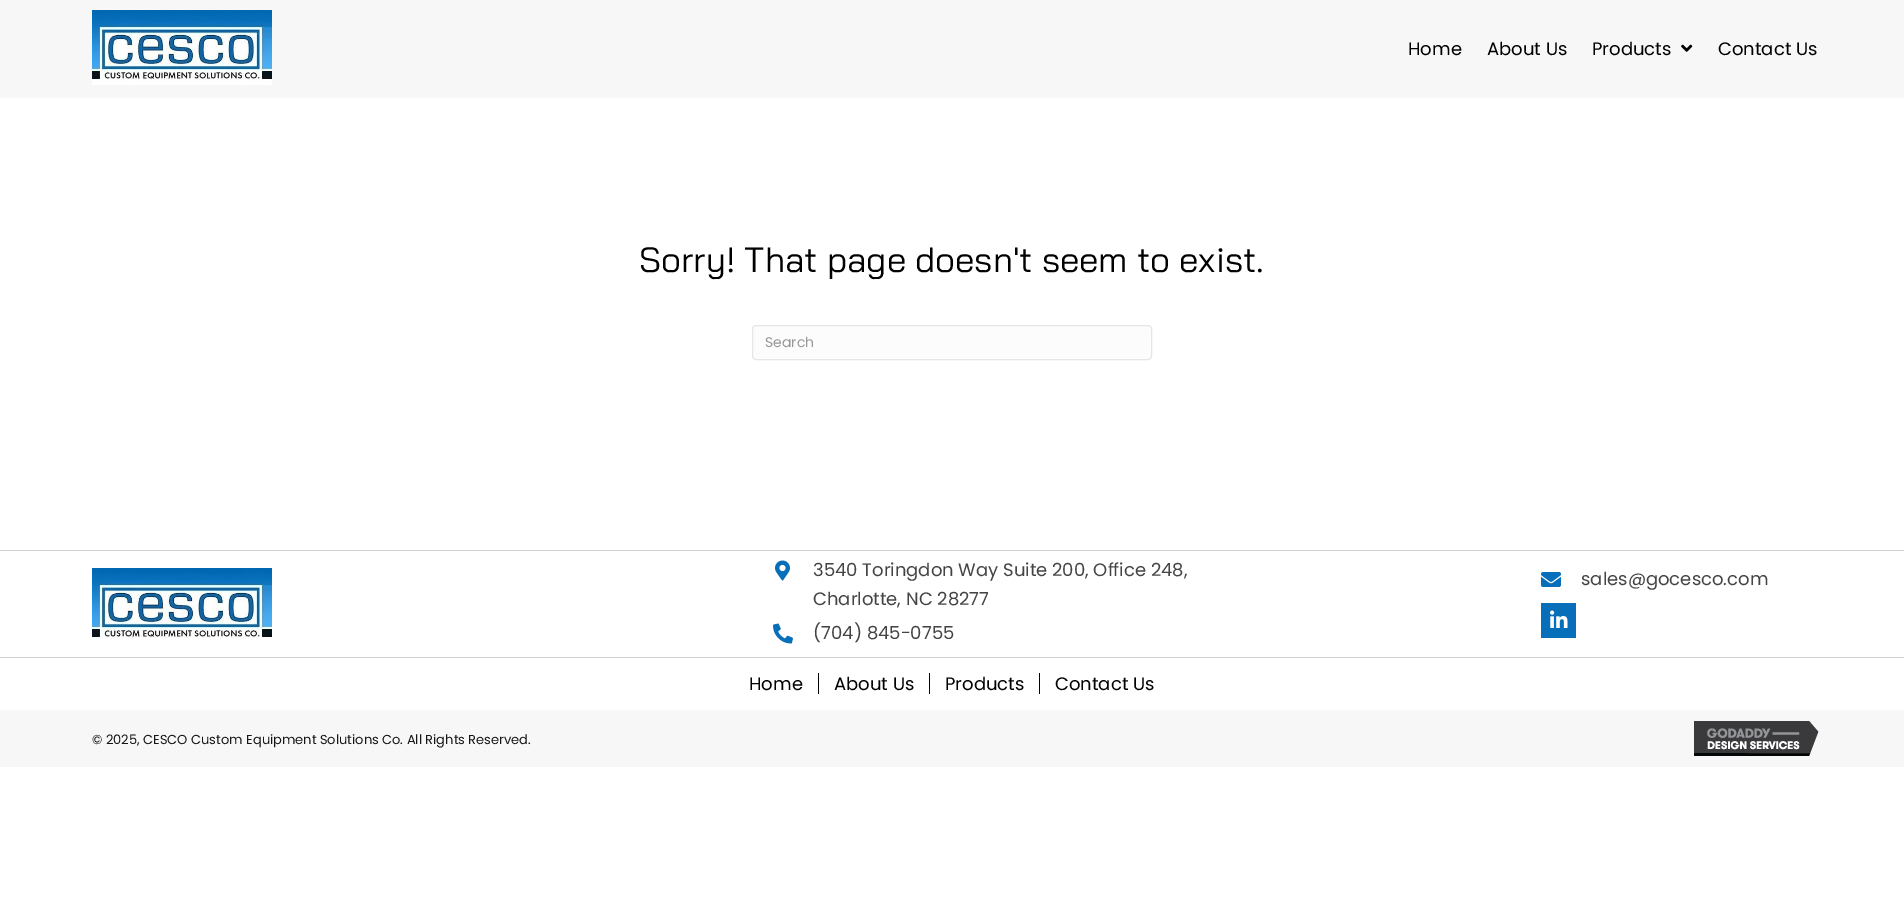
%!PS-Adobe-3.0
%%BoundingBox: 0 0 1904 910
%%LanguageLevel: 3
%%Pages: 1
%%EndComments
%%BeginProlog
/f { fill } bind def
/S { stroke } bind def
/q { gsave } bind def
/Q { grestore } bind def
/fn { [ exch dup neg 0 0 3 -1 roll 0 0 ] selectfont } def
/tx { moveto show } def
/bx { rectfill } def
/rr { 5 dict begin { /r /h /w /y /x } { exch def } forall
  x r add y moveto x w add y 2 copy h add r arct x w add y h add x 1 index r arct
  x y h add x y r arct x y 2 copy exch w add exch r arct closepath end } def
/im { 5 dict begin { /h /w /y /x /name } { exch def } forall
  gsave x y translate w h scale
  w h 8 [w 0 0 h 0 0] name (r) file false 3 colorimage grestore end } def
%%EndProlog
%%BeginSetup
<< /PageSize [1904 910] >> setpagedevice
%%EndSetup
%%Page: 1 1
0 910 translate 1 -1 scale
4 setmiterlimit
1 setgray
0 0 1904 910 bx
0.969 setgray
0 0 1904 98 bx
(image0.raw) 92 10 180 75 im
/Poppins-Regular 18 fn
0 setgray
(Home) 1408 55 tx
(About Us) 1487 55 tx
(Products) 1592 55 tx
(image1.raw) 1681 44 12 8 im
(Contact Us) 1718 55 tx
/BaiJamjuree-Regular 35 fn
(Sorry! That page doesn't seem to exist.) 639 272 tx
0.988 setgray
752.5 325.5 399 34 3.5 rr q f Q
0.902 setgray
S
/Poppins-Regular 14 fn
0.592 setgray
(Search) 765 347 tx
0.827 setgray
0 550 1904 1 bx
(image2.raw) 92 568 180 70 im
(image3.raw) 775 560 15 21 im
/Poppins-Regular 18 fn
0.267 setgray
(3540 Toringdon Way Suite 200, Office 248,) 813 576 tx
(Charlotte, NC 28277) 813 605 tx
(image4.raw) 773 623 20 21 im
(\(704\) 845-0755) 813 639 tx
(image5.raw) 1541 572 20 15 im
(sales@gocesco.com) 1581 585 tx
0.027 0.435 0.725 setrgbcolor
1541 603 35 35 bx
(image6.raw) 1550 610 18 18 im
0.827 setgray
0 657 1904 1 bx
0 setgray
(Home) 749 690 tx
818 673 1 21 bx
(About Us) 834 690 tx
929 673 1 21 bx
(Products) 945 690 tx
1039 673 1 21 bx
(Contact Us) 1055 690 tx
0.969 setgray
0 710 1904 57 bx
/Poppins-Regular 13 fn
0.086 setgray
(© 2025, CESCO Custom Equipment Solutions Co. All Rights Reserved.) 92 744 tx
(image7.raw) 1694 721 125 35 im
showpage
%%EOF
